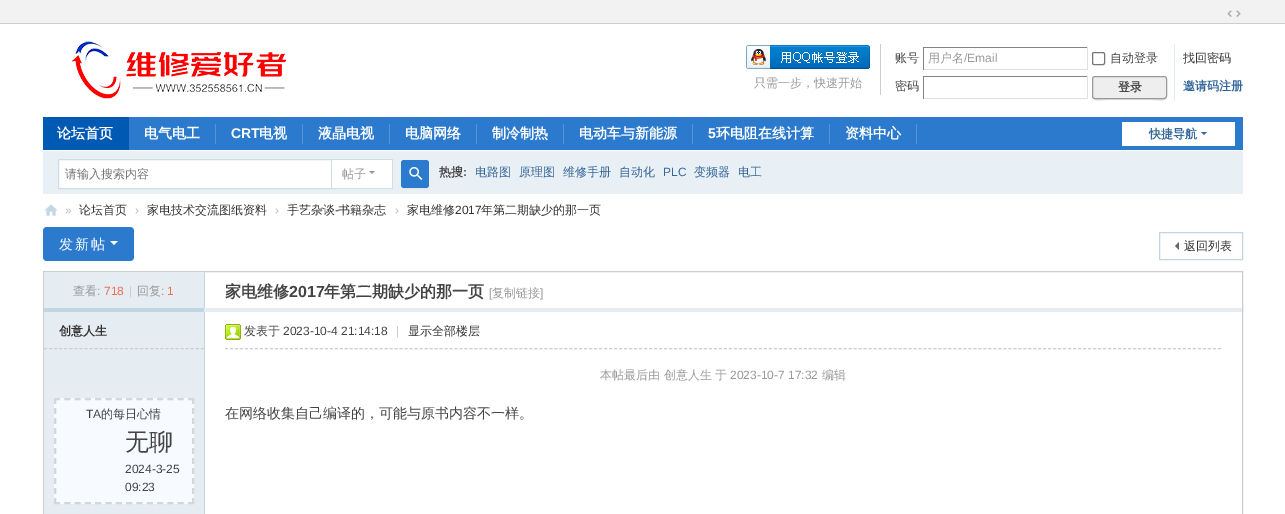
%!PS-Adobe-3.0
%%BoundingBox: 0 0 1285 514
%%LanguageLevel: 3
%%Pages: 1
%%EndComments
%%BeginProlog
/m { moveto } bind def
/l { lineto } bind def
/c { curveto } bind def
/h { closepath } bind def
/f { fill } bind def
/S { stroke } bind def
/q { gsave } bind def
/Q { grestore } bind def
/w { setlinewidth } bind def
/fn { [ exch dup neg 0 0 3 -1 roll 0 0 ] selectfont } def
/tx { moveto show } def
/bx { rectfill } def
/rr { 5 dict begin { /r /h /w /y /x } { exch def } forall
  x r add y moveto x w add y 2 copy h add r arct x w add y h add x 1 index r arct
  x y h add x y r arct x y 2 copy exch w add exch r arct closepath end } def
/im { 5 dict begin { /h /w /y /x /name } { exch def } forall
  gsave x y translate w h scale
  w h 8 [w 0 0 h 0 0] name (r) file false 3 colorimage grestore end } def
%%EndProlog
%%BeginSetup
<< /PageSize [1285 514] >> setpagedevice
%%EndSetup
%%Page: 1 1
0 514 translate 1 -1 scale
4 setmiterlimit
1 setgray
0 0 1285 514 bx
0.949 setgray
0 0 1285 23 bx
0.804 setgray
0 23 1285 1 bx
(image0.raw) 1227 10 14 7 im
(image1.raw) 71 41 216 58 im
880 44 1 51 bx
(image2.raw) 746 45 124 24 im
/WenQuanYiZenHei-Medium 12 fn
0.6 setgray
(只需一步，快速开始) 754 87 tx
0.267 setgray
(账号) 895 62 tx
0.518 setgray
923 47 165 1 bx
0.878 setgray
1087 47 1 23 bx
923 69 165 1 bx
0.518 setgray
923 47 1 23 bx
0.6 setgray
(用户名) 928 62 tx
/LiberationSans-Regular 12 fn
(/Email) 964 62 tx
0.463 setgray
1092.5 52.5 12 12 1.5 rr S
/WenQuanYiZenHei-Medium 12 fn
0.267 setgray
(自动登录) 1110 62 tx
0.2 setgray
(找回密码) 1183 62 tx
0.267 setgray
(密码) 895 90 tx
0.518 setgray
923 76 165 1 bx
0.878 setgray
1087 76 1 23 bx
923 98 165 1 bx
0.518 setgray
923 76 1 23 bx
0.898 0.929 0.949 setrgbcolor
1174 44 1 57 bx
0.898 setgray
1092 96 m 1092 103 1102 100 1106 100 c 1152 100 l 1157 100 1167 103 1167 96 c 1167 98 1166 99 1164 99 c 1095 99 l 1093 99 1092 98 1092 96 c h f
0.933 setgray
1092.5 76.5 74 22 2.5 rr q f Q
0.6 setgray
S
/WenQuanYiZenHei-Bold 12 fn
0.267 setgray
(登录) 1118 91 tx
0.2 0.4 0.6 setrgbcolor
(邀请码注册) 1183 90 tx
0.169 0.478 0.804 setrgbcolor
129 117 1114 33 bx
0 0.353 0.706 setrgbcolor
43 117 86 33 bx
/WenQuanYiZenHei-Bold 14 fn
1 setgray
(论坛首页) 57 138 tx
0.333 0.584 0.843 setrgbcolor
215 124 1 20 bx
1 setgray
(电气电工) 144 138 tx
0.333 0.584 0.843 setrgbcolor
302 124 1 20 bx
/LiberationSans-Bold 14 fn
1 setgray
(CRT) 231 138 tx
/WenQuanYiZenHei-Bold 14 fn
(电视) 259 138 tx
0.333 0.584 0.843 setrgbcolor
389 124 1 20 bx
1 setgray
(液晶电视) 318 138 tx
0.333 0.584 0.843 setrgbcolor
476 124 1 20 bx
1 setgray
(电脑网络) 405 138 tx
0.333 0.584 0.843 setrgbcolor
563 124 1 20 bx
1 setgray
(制冷制热) 492 138 tx
0.333 0.584 0.843 setrgbcolor
692 124 1 20 bx
1 setgray
(电动车与新能源) 579 138 tx
0.333 0.584 0.843 setrgbcolor
829 124 1 20 bx
/LiberationSans-Bold 14 fn
1 setgray
(5) 708 138 tx
/WenQuanYiZenHei-Bold 14 fn
(环电阻在线计算) 716 138 tx
0.333 0.584 0.843 setrgbcolor
916 124 1 20 bx
1 setgray
(资料中心) 845 138 tx
1122 122 113 24 bx
/WenQuanYiZenHei-Bold 12 fn
0.2 0.4 0.6 setrgbcolor
(快捷导航) 1149 138 tx
1201 132 m 1207 132 l 1204 135 l h f
0.91 0.937 0.961 setrgbcolor
43 151 1200 43 bx
0.812 0.871 0.89 setrgbcolor
330 159 63 1 bx
392 159 1 30 bx
330 188 63 1 bx
1 setgray
58.5 159.5 m 331.5 159.5 l 331.5 188.5 l 58.5 188.5 l h q f Q
0.812 0.871 0.89 setrgbcolor
S
/WenQuanYiZenHei-Medium 12 fn
0.459 setgray
(请输入搜索内容) 65 178 tx
1 setgray
332 160 60 28 bx
0.6 setgray
(帖子) 342 178 tx
369 171 m 375 171 l 372 174 l h f
0.898 setgray
401 185 m 401 189.5 404 189 407.5 189 c 422.5 189 l 426 189 429 189.5 429 185 c 429 186.5 427.5 188 426 188 c 404 188 l 402.5 188 401 186.5 401 185 c h f
0.169 0.478 0.804 setrgbcolor
401 160 28 28 3 rr f
(image3.raw) 409 167 14 13 im
/WenQuanYiZenHei-Bold 12 fn
0.267 setgray
(热搜) 439 176 tx
/LiberationSans-Bold 12 fn
(:) 463 176 tx
/WenQuanYiZenHei-Medium 12 fn
0.2 0.4 0.6 setrgbcolor
(电路图) 475 176 tx
(原理图) 519 176 tx
(维修手册) 563 176 tx
(自动化) 619 176 tx
/LiberationSans-Regular 12 fn
(PLC) 663 176 tx
/WenQuanYiZenHei-Medium 12 fn
(变频器) 694 176 tx
(电工) 738 176 tx
(image4.raw) 44 204 14 12 im
/LiberationSans-Regular 12 fn
0.741 setgray
(») 65 214 tx
/WenQuanYiZenHei-Medium 12 fn
0.2 setgray
(论坛首页) 79 214 tx
/LiberationSans-Regular 12 fn
0.741 setgray
(›) 135 214 tx
/WenQuanYiZenHei-Medium 12 fn
0.2 setgray
(家电技术交流图纸资料) 147 214 tx
/LiberationSans-Regular 12 fn
0.741 setgray
(›) 275 214 tx
/WenQuanYiZenHei-Medium 12 fn
0.2 setgray
(手艺杂谈) 287 214 tx
/LiberationSans-Regular 12 fn
(-) 335 214 tx
/WenQuanYiZenHei-Medium 12 fn
(书籍杂志) 338 214 tx
/LiberationSans-Regular 12 fn
0.741 setgray
(›) 395 214 tx
/WenQuanYiZenHei-Medium 12 fn
0.2 setgray
(家电维修) 407 214 tx
/LiberationSans-Regular 12 fn
(2017) 455 214 tx
/WenQuanYiZenHei-Medium 12 fn
(年第二期缺少的那一页) 481 214 tx
0.169 0.478 0.804 setrgbcolor
43 227 91 34 4 rr f
/WenQuanYiZenHei-Medium 14 fn
1 setgray
59 249 m 2 0 (发新帖) ashow
110 241 m 118 241 l 114 245 l h f
0.761 0.835 0.89 setrgbcolor
1159.5 232.5 83 27 rectstroke
0.4 setgray
1179 242 m 1179 250 l 1175 246 l h f
/WenQuanYiZenHei-Medium 12 fn
0.2 setgray
(返回列表) 1184 250 tx
0.804 setgray
43.5 271.5 1199 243 rectstroke
0.761 0.835 0.89 setrgbcolor
204 272 1 37 bx
0.898 0.929 0.949 setrgbcolor
44 272 160 36 bx
0.6 setgray
(查看) 73 295 tx
/LiberationSans-Regular 12 fn
(:) 97 295 tx
0.949 0.424 0.31 setrgbcolor
(718) 104 295 tx
0.8 setgray
(|) 129 295 tx
/WenQuanYiZenHei-Medium 12 fn
0.6 setgray
(回复) 137 295 tx
/LiberationSans-Regular 12 fn
(:) 161 295 tx
0.949 0.424 0.31 setrgbcolor
(1) 167 295 tx
/WenQuanYiZenHei-Bold 16 fn
0.267 setgray
(家电维修) 225 297 tx
/LiberationSans-Bold 16 fn
(2017) 289 297 tx
/WenQuanYiZenHei-Bold 16 fn
(年第二期缺少的那一页) 324 297 tx
/LiberationSans-Regular 12 fn
0.6 setgray
([) 489 297 tx
/WenQuanYiZenHei-Medium 12 fn
(复制链接) 492 297 tx
/LiberationSans-Regular 12 fn
(]) 540 297 tx
0.761 0.835 0.89 setrgbcolor
44 308 160 4 bx
0.898 0.929 0.949 setrgbcolor
204 308 1038 4 bx
0.761 0.835 0.89 setrgbcolor
204 312 1 202 bx
0.898 0.929 0.949 setrgbcolor
44 312 160 202 bx
0.804 setgray
[3 2.06] 0 setdash
44 348.5 m 204 348.5 l S
/WenQuanYiZenHei-Bold 12 fn
0.2 setgray
(创意人生) 59 335 tx
0.969 0.98 1 setrgbcolor
54 398 140 106 bx
0.82 0.847 0.847 setrgbcolor
2 w
[6 4.31] 0 setdash
54 399 m 194 399 l S
[6 4] 0 setdash
193 398 m 193 504 l S
[6 4.31] 0 setdash
54 503 m 194 503 l S
[6 4] 0 setdash
55 398 m 55 504 l S
/LiberationSans-Regular 12 fn
0.267 setgray
(TA) 86 418 tx
/WenQuanYiZenHei-Medium 12 fn
(的每日心情) 101 418 tx
/WenQuanYiZenHei-Medium 24 fn
(无聊) 125 450 tx
/LiberationSans-Regular 12 fn
(2024-3-25) 125 473 tx
(09:23) 125 491 tx
0.804 setgray
1 w
[3 1.99] 0 setdash
225 348.5 m 1222 348.5 l S
(image5.raw) 225 324 16 16 im
/WenQuanYiZenHei-Medium 12 fn
0.267 setgray
(发表于) 244 335 tx
/LiberationSans-Regular 12 fn
(2023-10-4 21:14:18) 283 335 tx
0.8 setgray
(|) 396 335 tx
/WenQuanYiZenHei-Medium 12 fn
0.2 setgray
(显示全部楼层) 408 335 tx
0.6 setgray
(本帖最后由 创意人生 于) 600 379 tx
/LiberationSans-Regular 12 fn
(2023-10-7 17:32) 730 379 tx
/WenQuanYiZenHei-Medium 12 fn
(编辑) 822 379 tx
/WenQuanYiZenHei-Medium 14 fn
0.267 setgray
(在网络收集自己编译的，可能与原书内容不一样。) 225 418 tx
showpage
%%EOF
